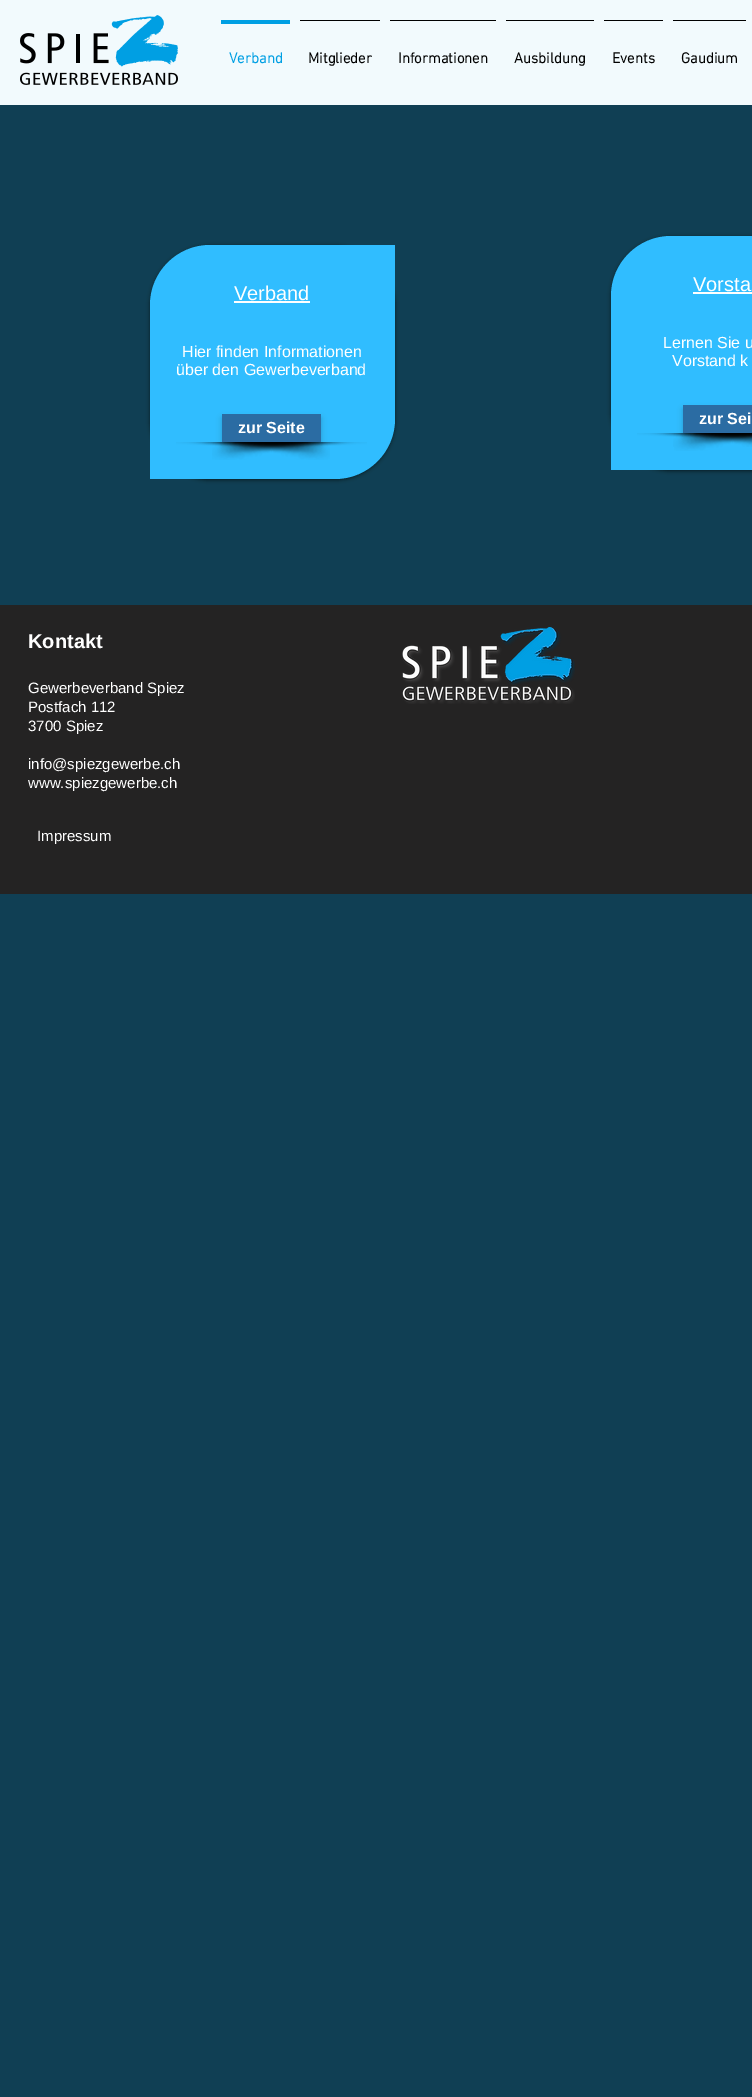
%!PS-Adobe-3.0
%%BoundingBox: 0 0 752 2097
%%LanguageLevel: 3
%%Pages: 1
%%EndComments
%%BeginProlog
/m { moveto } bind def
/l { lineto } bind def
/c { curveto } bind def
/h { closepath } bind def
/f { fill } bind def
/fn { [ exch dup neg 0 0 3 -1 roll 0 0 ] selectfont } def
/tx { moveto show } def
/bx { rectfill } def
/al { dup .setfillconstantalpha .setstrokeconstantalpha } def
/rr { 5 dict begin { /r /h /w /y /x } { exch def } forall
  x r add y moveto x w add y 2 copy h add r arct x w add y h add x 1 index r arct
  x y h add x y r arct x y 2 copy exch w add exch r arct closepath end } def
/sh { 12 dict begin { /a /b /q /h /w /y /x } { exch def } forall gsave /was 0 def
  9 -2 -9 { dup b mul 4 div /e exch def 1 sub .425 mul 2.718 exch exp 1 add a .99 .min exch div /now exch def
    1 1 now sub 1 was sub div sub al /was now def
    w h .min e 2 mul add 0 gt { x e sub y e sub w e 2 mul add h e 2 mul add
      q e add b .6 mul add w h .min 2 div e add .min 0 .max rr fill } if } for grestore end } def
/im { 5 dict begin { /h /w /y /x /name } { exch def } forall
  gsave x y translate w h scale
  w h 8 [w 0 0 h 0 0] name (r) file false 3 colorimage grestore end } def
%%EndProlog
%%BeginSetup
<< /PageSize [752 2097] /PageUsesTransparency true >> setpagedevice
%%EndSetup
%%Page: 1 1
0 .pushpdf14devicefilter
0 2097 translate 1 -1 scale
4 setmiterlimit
0.063 0.247 0.329 setrgbcolor
0 0 752 2097 bx
0.949 0.98 0.992 setrgbcolor
0 0 752 105 bx
(image0.raw) 20 15 158 70 im
0 0.624 0.89 setrgbcolor
221 20 69 4 bx
/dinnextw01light-Bold 15 fn
(Verband) 229 63 tx
0 setgray
300 20 80 1 bx
(Mitglieder) 308 63 tx
390 20 106 1 bx
(Informationen) 398 63 tx
506 20 88 1 bx
(Ausbildung) 514 63 tx
604 20 59 1 bx
(Events) 612 63 tx
673 20 73 1 bx
(Gaudium) 681 63 tx
150 246 245 234 60 2 0.6 sh
0.188 0.741 1 setrgbcolor
210 245 m 395 245 l 395 419 l 395 452 368 479 335 479 c 150 479 l 150 305 l 150 272 177 245 210 245 c h f
/LiberationSans-Regular 20 fn
1 setgray
(Verband) 234 300 tx
234 301 76 2 bx
/LiberationSans-Regular 16 fn
(Hier finden Informationen) 182 357 tx
(über den Gewerbeverband) 176 375 tx
(image2.raw) 213 442 154 18 im
(image1.raw) 176 442 154 18 im
0 setgray
222 418 99 28 0 3 0.2 sh
0.169 0.424 0.639 setrgbcolor
222 414 99 28 bx
/LiberationSans-Bold 16 fn
1 setgray
(zur Seite) 238 433 tx
0 setgray
611 237 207 234 60 2 0.6 sh
0.188 0.741 1 setrgbcolor
671 236 m 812 236 l 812 410 l 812 443 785 470 752 470 c 611 470 l 611 296 l 611 263 638 236 671 236 c h f
/LiberationSans-Regular 20 fn
1 setgray
(Vorsta) 693 291 tx
693 292 59 2 bx
/LiberationSans-Regular 16 fn
(Lernen Sie u) 663 348 tx
(Vorstand k) 672 366 tx
(image4.raw) 674 433 78 18 im
(image3.raw) 637 433 115 14 im
0 setgray
683 409 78 28 0 3 0.2 sh
0.169 0.424 0.639 setrgbcolor
683 405 69 28 bx
/LiberationSans-Bold 16 fn
1 setgray
(zur Sei) 699 424 tx
0.141 0.137 0.137 setrgbcolor
0 605 752 289 bx
/LiberationSans-Bold 20 fn
1 setgray
(Kontakt) 28 648 tx
(image5.raw) 402 627 173 77 im
/LiberationSans-Regular 15 fn
(Gewerbeverband Spiez) 28 693 tx
(Postfach 112) 28 712 tx
(3700 Spiez) 28 731 tx
(info@spiezgewerbe.ch) 28 769 tx
(www.spiezgewerbe.ch) 28 788 tx
(Impressum) 37 841 tx
.poppdf14devicefilter showpage
%%EOF
